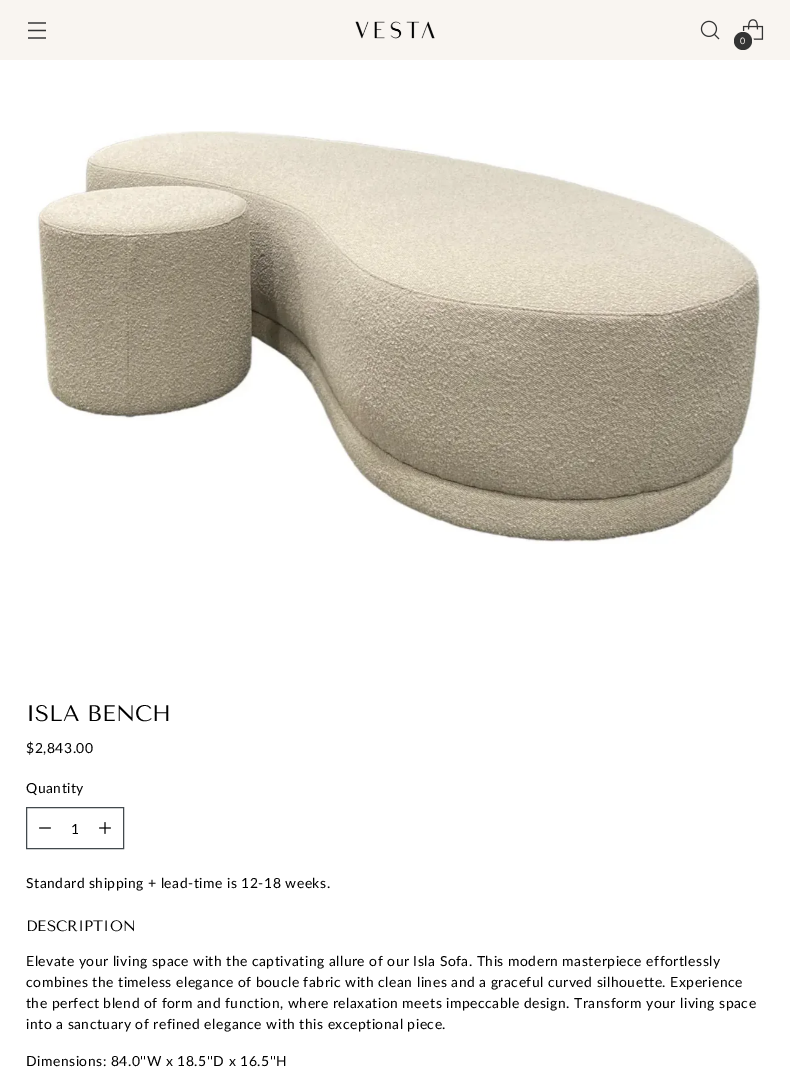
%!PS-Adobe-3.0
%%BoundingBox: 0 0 790 1072
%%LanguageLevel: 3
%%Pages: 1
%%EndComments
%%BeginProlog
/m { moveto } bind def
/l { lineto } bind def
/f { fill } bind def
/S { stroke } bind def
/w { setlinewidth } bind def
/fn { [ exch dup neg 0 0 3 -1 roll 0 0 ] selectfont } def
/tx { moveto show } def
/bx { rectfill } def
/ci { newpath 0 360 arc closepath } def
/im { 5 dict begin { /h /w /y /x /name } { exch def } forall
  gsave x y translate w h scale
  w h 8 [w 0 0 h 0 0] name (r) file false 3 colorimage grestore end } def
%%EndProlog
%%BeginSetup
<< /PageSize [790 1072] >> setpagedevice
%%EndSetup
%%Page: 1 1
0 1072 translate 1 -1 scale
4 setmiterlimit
1 setgray
0 0 790 1072 bx
0.976 0.961 0.945 setrgbcolor
0 0 790 60 bx
0.204 setgray
1.3 w
28 30.5 m 46 30.5 l 28 23 m 46 23 l 28 38 m 46 38 l S
(image0.raw) 355 21 80 18 im
(image1.raw) 700 20 20 20 im
(image2.raw) 742 19 22 21 im
0.976 0.961 0.945 setrgbcolor
2 w
743.5 41.5 9.5 ci S
0.204 setgray
743 41 9 ci f
/Lato-Regular 9 fn
0.976 0.961 0.945 setrgbcolor
740 44 m 0.49 0 (0) ashow
(image3.raw) 36 131 726 413 im
/TenorSans-Regular 22.5 fn
0 setgray
(ISLA BENCH) 26 721 tx
/Lato-Regular 13.95 fn
26 753 m 0.49 0 ($2,843.00) ashow
26 793 m 0.49 0 (Quantity) ashow
0.259 0.286 0.302 setrgbcolor
1 w
26.5 807.5 97 41 rectstroke
(image4.raw) 39 827 12 2 im
0 setgray
(1) 71 834 tx
(image5.raw) 99 822 12 12 im
26 888 m 0.49 0 (Standard shipping + lead-time is 12-18 weeks.) ashow
/TenorSans-Regular 15 fn
(DESCRIPTION) 26 931 tx
/Lato-Regular 13.95 fn
26 966 m 0.49 0 (Elevate your living space with the captivating allure of our Isla Sofa. This modern masterpiece effortlessly) ashow
26 987 m 0.49 0 (combines the timeless elegance of boucle fabric with clean lines and a graceful curved silhouette. Experience) ashow
26 1008 m 0.49 0 (the perfect blend of form and function, where relaxation meets impeccable design. Transform your living space) ashow
26 1029 m 0.49 0 (into a sanctuary of refined elegance with this exceptional piece.) ashow
26 1066 m 0.49 0 (Dimensions: 84.0''W x 18.5''D x 16.5''H) ashow
showpage
%%EOF
